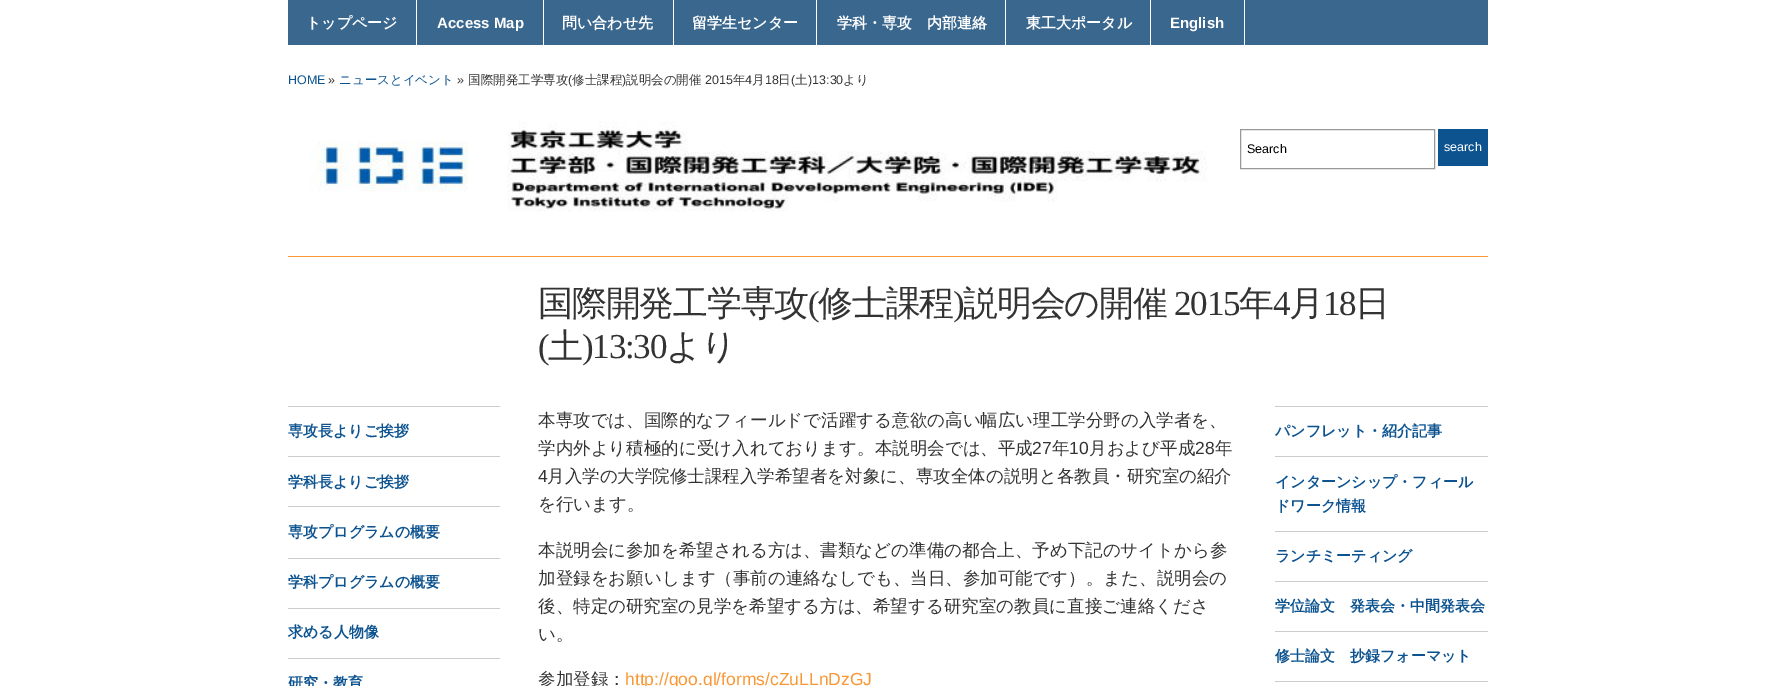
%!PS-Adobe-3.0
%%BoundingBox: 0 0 1775 686
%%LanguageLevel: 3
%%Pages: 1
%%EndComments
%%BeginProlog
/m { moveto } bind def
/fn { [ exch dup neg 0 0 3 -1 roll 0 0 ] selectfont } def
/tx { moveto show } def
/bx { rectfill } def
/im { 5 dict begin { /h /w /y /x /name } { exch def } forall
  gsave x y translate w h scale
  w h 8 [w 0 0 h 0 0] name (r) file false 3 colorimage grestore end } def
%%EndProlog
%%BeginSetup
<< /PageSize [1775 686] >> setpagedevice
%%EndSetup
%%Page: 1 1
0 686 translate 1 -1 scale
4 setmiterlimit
1 setgray
0 0 1775 686 bx
0.227 0.404 0.553 setrgbcolor
288 0 1200 45 bx
1 setgray
416 0 1 45 bx
/WenQuanYiZenHei-Bold 15 fn
(トップページ) 306 28 tx
543 0 1 45 bx
/LiberationSans-Bold 15 fn
(Access Map) 437 28 tx
673 0 1 45 bx
/WenQuanYiZenHei-Bold 15 fn
(問い合わせ先) 562 28 tx
816 0 1 45 bx
(留学生センター) 692 28 tx
1005 0 1 45 bx
(学科・専攻　内部連絡) 837 28 tx
1150 0 1 45 bx
(東工大ポータル) 1026 28 tx
1244 0 1 45 bx
/LiberationSans-Bold 15 fn
(English) 1170 28 tx
/LiberationSans-Regular 12.5 fn
0.047 0.325 0.565 setrgbcolor
(HOME) 288 84 tx
0.2 setgray
(») 328 84 tx
/WenQuanYiZenHei-Medium 12.5 fn
0.047 0.325 0.565 setrgbcolor
(ニュースとイベント) 339 84 tx
/LiberationSans-Regular 12.5 fn
0.2 setgray
(») 457 84 tx
/WenQuanYiZenHei-Medium 12.5 fn
(国際開発工学専攻) 468 84 tx
/LiberationSans-Regular 12.5 fn
(\() 568 84 tx
/WenQuanYiZenHei-Medium 12.5 fn
(修士課程) 572 84 tx
/LiberationSans-Regular 12.5 fn
(\)) 622 84 tx
/WenQuanYiZenHei-Medium 12.5 fn
(説明会の開催) 626 84 tx
/LiberationSans-Regular 12.5 fn
(2015) 705 84 tx
/WenQuanYiZenHei-Medium 12.5 fn
(年) 733 84 tx
/LiberationSans-Regular 12.5 fn
(4) 745 84 tx
/WenQuanYiZenHei-Medium 12.5 fn
(月) 752 84 tx
/LiberationSans-Regular 12.5 fn
(18) 765 84 tx
/WenQuanYiZenHei-Medium 12.5 fn
(日) 778 84 tx
/LiberationSans-Regular 12.5 fn
(\() 791 84 tx
/WenQuanYiZenHei-Medium 12.5 fn
(土) 795 84 tx
/LiberationSans-Regular 12.5 fn
(\)13:30) 808 84 tx
/WenQuanYiZenHei-Medium 12.5 fn
(より) 843 84 tx
(image0.raw) 308 121 899 91 im
0.6 setgray
1240.5 129.5 194 39 rectstroke
/LiberationSans-Regular 12.5 fn
0 setgray
(Search) 1247 153 tx
0.047 0.325 0.565 setrgbcolor
1438 129 50 37 bx
1 setgray
(search) 1444 151 tx
0.976 0.592 0.204 setrgbcolor
288 256 1200 1 bx
/WenQuanYiZenHei-Medium 35 fn
0.2 setgray
538 315 m -1.25 0 (国際開発工学専攻) ashow
/LiberationSerif-Regular 35 fn
808 315 m -1.25 0 (\() ashow
/WenQuanYiZenHei-Medium 35 fn
818 315 m -1.25 0 (修士課程) ashow
/LiberationSerif-Regular 35 fn
953 315 m -1.25 0 (\)) ashow
/WenQuanYiZenHei-Medium 35 fn
963 315 m -1.25 0 (説明会の開催) ashow
/LiberationSerif-Regular 35 fn
1174 315 m -1.25 0 (2015) ashow
/WenQuanYiZenHei-Medium 35 fn
1239 315 m -1.25 0 (年) ashow
/LiberationSerif-Regular 35 fn
1273 315 m -1.25 0 (4) ashow
/WenQuanYiZenHei-Medium 35 fn
1289 315 m -1.25 0 (月) ashow
/LiberationSerif-Regular 35 fn
1323 315 m -1.25 0 (18) ashow
/WenQuanYiZenHei-Medium 35 fn
1355 315 m -1.25 0 (日) ashow
/LiberationSerif-Regular 35 fn
538 358 m -1.25 0 (\() ashow
/WenQuanYiZenHei-Medium 35 fn
548 358 m -1.25 0 (土) ashow
/LiberationSerif-Regular 35 fn
582 358 m -1.25 0 (\)13:30) ashow
/WenQuanYiZenHei-Medium 35 fn
666 358 m -1.25 0 (より) ashow
0.8 setgray
288 406 212 1 bx
/WenQuanYiZenHei-Bold 15 fn
0.047 0.325 0.565 setrgbcolor
(専攻長よりご挨拶) 288 436 tx
0.8 setgray
288 456 212 1 bx
0.047 0.325 0.565 setrgbcolor
(学科長よりご挨拶) 288 487 tx
0.8 setgray
288 506 212 1 bx
0.047 0.325 0.565 setrgbcolor
(専攻プログラムの概要) 288 537 tx
0.8 setgray
288 558 212 1 bx
0.047 0.325 0.565 setrgbcolor
(学科プログラムの概要) 288 587 tx
0.8 setgray
288 608 212 1 bx
0.047 0.325 0.565 setrgbcolor
(求める人物像) 288 637 tx
0.8 setgray
288 658 212 1 bx
0.047 0.325 0.565 setrgbcolor
(研究・教育) 288 688 tx
/WenQuanYiZenHei-Medium 17.5 fn
0.2 setgray
(本専攻では、国際的なフィールドで活躍する意欲の高い幅広い理工学分野の入学者を、) 538 426 tx
(学内外より積極的に受け入れております。本説明会では、平成) 538 454 tx
/LiberationSans-Regular 17.5 fn
(27) 1032 454 tx
/WenQuanYiZenHei-Medium 17.5 fn
(年) 1052 454 tx
/LiberationSans-Regular 17.5 fn
(10) 1069 454 tx
/WenQuanYiZenHei-Medium 17.5 fn
(月および平成) 1089 454 tx
/LiberationSans-Regular 17.5 fn
(28) 1195 454 tx
/WenQuanYiZenHei-Medium 17.5 fn
(年) 1215 454 tx
/LiberationSans-Regular 17.5 fn
(4) 538 482 tx
/WenQuanYiZenHei-Medium 17.5 fn
(月入学の大学院修士課程入学希望者を対象に、専攻全体の説明と各教員・研究室の紹介) 547 482 tx
(を行います。) 538 510 tx
(本説明会に参加を希望される方は、書類などの準備の都合上、予め下記のサイトから参) 538 556 tx
(加登録をお願いします（事前の連絡なしでも、当日、参加可能です）。また、説明会の) 538 584 tx
(後、特定の研究室の見学を希望する方は、希望する研究室の教員に直接ご連絡くださ) 538 612 tx
(い。) 538 640 tx
(参加登録：) 538 685 tx
/LiberationSans-Regular 17.5 fn
0.976 0.592 0.204 setrgbcolor
(http://goo.gl/forms/cZuLLnDzGJ) 625 685 tx
0.8 setgray
1275 406 213 1 bx
/WenQuanYiZenHei-Bold 15 fn
0.047 0.325 0.565 setrgbcolor
(パンフレット・紹介記事) 1275 436 tx
0.8 setgray
1275 456 213 1 bx
0.047 0.325 0.565 setrgbcolor
(インターンシップ・フィール) 1275 487 tx
(ドワーク情報) 1275 511 tx
0.8 setgray
1275 531 213 1 bx
0.047 0.325 0.565 setrgbcolor
(ランチミーティング) 1275 561 tx
0.8 setgray
1275 581 213 1 bx
0.047 0.325 0.565 setrgbcolor
(学位論文　発表会・中間発表会) 1275 611 tx
0.8 setgray
1275 631 213 1 bx
0.047 0.325 0.565 setrgbcolor
(修士論文　抄録フォーマット) 1275 661 tx
0.8 setgray
1275 681 213 1 bx
showpage
%%EOF
